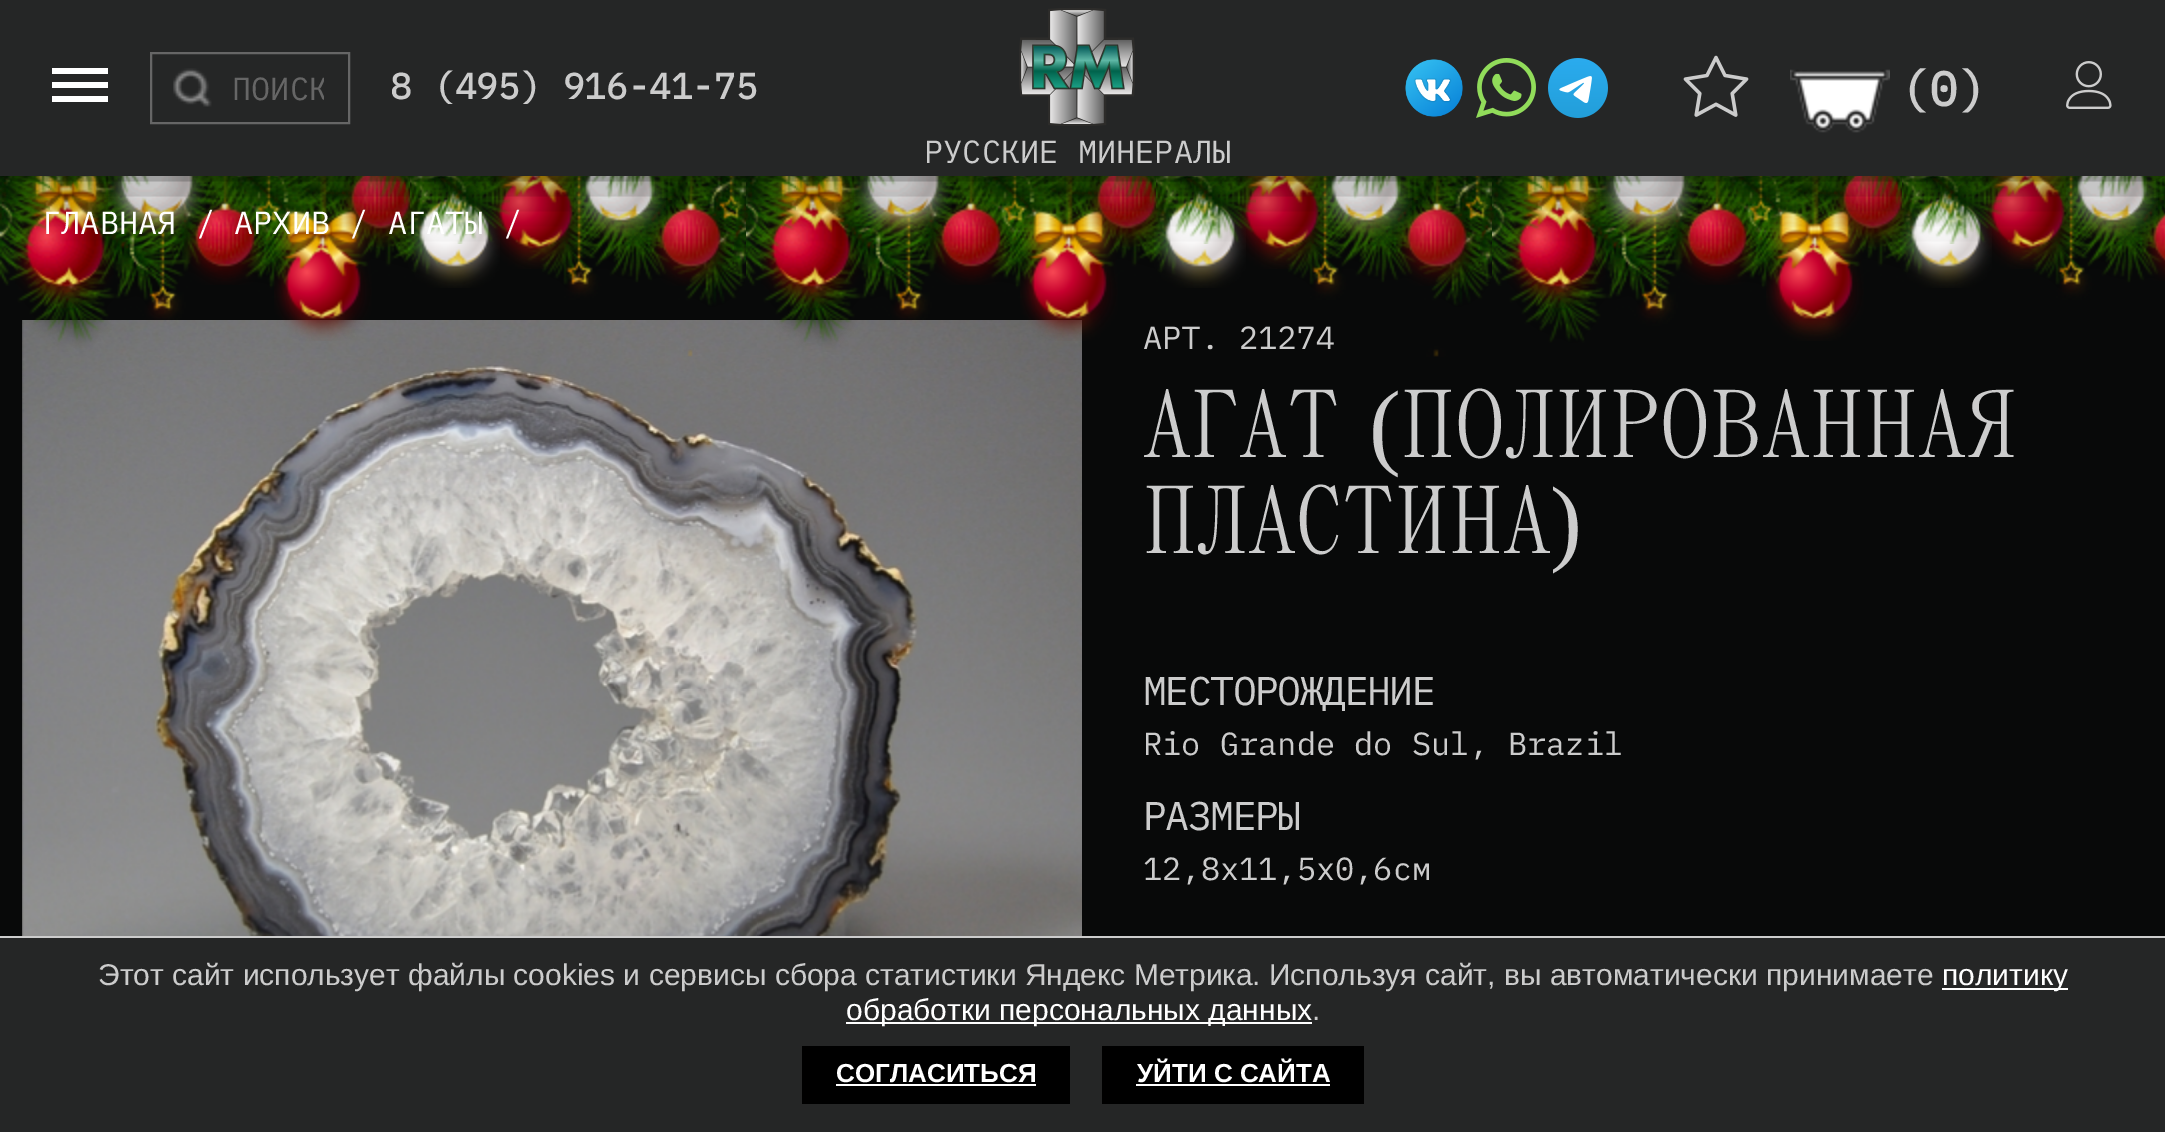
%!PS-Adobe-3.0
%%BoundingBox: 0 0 2165 1132
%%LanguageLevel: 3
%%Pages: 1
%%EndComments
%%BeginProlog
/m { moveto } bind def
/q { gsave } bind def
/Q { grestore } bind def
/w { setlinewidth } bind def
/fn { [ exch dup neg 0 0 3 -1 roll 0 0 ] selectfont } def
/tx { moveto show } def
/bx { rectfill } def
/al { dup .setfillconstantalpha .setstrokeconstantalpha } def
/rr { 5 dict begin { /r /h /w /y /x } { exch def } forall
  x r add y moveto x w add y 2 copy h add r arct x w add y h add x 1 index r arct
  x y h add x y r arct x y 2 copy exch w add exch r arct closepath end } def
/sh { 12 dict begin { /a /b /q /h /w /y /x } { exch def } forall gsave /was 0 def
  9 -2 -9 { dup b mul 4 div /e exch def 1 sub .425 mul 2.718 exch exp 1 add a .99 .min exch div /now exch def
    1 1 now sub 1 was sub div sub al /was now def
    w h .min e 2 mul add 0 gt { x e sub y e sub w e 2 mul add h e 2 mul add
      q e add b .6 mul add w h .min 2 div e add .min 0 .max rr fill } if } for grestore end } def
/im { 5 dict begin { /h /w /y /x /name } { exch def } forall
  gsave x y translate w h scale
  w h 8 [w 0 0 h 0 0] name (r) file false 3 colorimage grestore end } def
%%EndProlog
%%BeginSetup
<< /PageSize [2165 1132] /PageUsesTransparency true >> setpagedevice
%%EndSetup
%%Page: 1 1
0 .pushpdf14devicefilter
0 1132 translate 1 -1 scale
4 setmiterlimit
0.031 0.035 0.035 setrgbcolor
0 0 2165 1132 bx
0.2 setgray
22 320 2 616 bx
(image28.raw) 22 320 1060 616 im
/IBMPlexMono-Regular 32 fn
0.8 setgray
(АРТ. 21274) 1143 349 tx
(image0.raw) 0 176 2165 181 im
(image2.raw) 14 176 100 132 im
(image1.raw) 0 176 50 110 im
(image4.raw) 108 176 98 64 im
(image3.raw) 50 176 100 22 im
(image5.raw) 184 176 80 109 im
(image6.raw) 274 176 98 165 im
(image7.raw) 339 176 81 71 im
(image9.raw) 408 176 92 112 im
(image8.raw) 353 176 57 30 im
(image11.raw) 488 176 95 93 im
(image10.raw) 410 176 100 68 im
(image12.raw) 574 176 92 66 im
(image14.raw) 650 176 81 110 im
(image13.raw) 590 176 122 24 im
(image15.raw) 734 176 12 106 im
(image2.raw) 760 176 100 132 im
(image1.raw) 746 176 50 110 im
(image4.raw) 854 176 98 64 im
(image3.raw) 796 176 100 22 im
(image5.raw) 930 176 80 109 im
(image16.raw) 1020 176 98 165 im
(image7.raw) 1085 176 81 71 im
(image9.raw) 1154 176 92 112 im
(image8.raw) 1099 176 57 30 im
(image11.raw) 1234 176 95 93 im
(image10.raw) 1156 176 100 68 im
(image12.raw) 1320 176 92 66 im
(image14.raw) 1396 176 81 110 im
(image13.raw) 1336 176 122 24 im
(image15.raw) 1480 176 12 106 im
(image2.raw) 1506 176 100 132 im
(image1.raw) 1492 176 50 110 im
(image4.raw) 1600 176 98 64 im
(image3.raw) 1542 176 100 22 im
(image5.raw) 1676 176 80 109 im
(image17.raw) 1766 176 98 165 im
(image7.raw) 1831 176 81 71 im
(image9.raw) 1900 176 92 112 im
(image8.raw) 1845 176 57 30 im
(image11.raw) 1980 176 95 93 im
(image10.raw) 1902 176 100 68 im
(image12.raw) 2066 176 92 66 im
(image18.raw) 2082 176 83 24 im
(image19.raw) 2142 209 23 72 im
0 setgray
0 -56 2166 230 0 30 0.75 sh
0.145 0.149 0.149 setrgbcolor
0 0 2165 176 bx
1 setgray
52 68 56 6 bx
52 82 56 6 bx
52 96 56 6 bx
0.4 setgray
2 w
151 53 198 70 rectstroke
(image20.raw) 173 68 39 39 im
q
232 68 92 40 rectclip
(ПОИСК) 232 100 tx
Q
/IBMPlexMono-Bold 36 fn
0.8 setgray
(8 \(495\) 916-41-75) 390 99 tx
(image21.raw) 1405 59 58 58 im
(image22.raw) 1476 58 60 60 im
(image23.raw) 1548 58 60 60 im
(image24.raw) 1683 55 66 62 im
(image25.raw) 1790 69 100 64 im
/IBMPlexMono-Bold 48 fn
(\(0\)) 1900 106 tx
(image26.raw) 2066 61 46 48 im
(image27.raw) 1019 8 116 118 im
/IBMPlexMono-Regular 32 fn
(РУССКИЕ МИНЕРАЛЫ) 924 163 tx
1 setgray
(ГЛАВНАЯ / АРХИВ / АГАТЫ /) 42 234 tx
/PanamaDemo-Regular 96 fn
0.8 setgray
(АГАТ) 1143 457 tx
/LiberationSerif-Regular 96 fn
(\() 1369 457 tx
/PanamaDemo-Regular 96 fn
(ПОЛИРОВАННАЯ) 1401 457 tx
(ПЛАСТИНА) 1143 553 tx
/LiberationSerif-Regular 96 fn
(\)) 1550 553 tx
/IBMPlexMono-Regular 40 fn
1143 705 m -1.6 0 (МЕСТОРОЖДЕНИЕ) ashow
/IBMPlexMono-Regular 32 fn
(Rio Grande do Sul, Brazil) 1143 755 tx
/IBMPlexMono-Regular 40 fn
1143 830 m -1.6 0 (РАЗМЕРЫ) ashow
/IBMPlexMono-Regular 32 fn
(12,8х11,5х0,6см) 1143 880 tx
0.145 0.149 0.149 setrgbcolor
0 938 2165 194 bx
0.8 setgray
0 936 2165 2 bx
/LiberationSans-Regular 30 fn
(Этот сайт использует файлы cookies и сервисы сбора статистики Яндекс Метрика. Используя сайт, вы автоматически принимаете) 98 985 tx
1 setgray
1942 988 126 2 bx
(политику) 1942 985 tx
846 1022 466 2 bx
(обработки персональных данных) 846 1020 tx
0.8 setgray
(.) 1312 1020 tx
0 setgray
802 1046 268 58 bx
/LiberationSans-Bold 26 fn
1 setgray
(СОГЛАСИТЬСЯ) 836 1082 tx
836 1084 200 2 bx
0 setgray
1102 1046 262 58 bx
1 setgray
(УЙТИ С САЙТА) 1137 1082 tx
1136 1084 194 2 bx
.poppdf14devicefilter showpage
%%EOF
